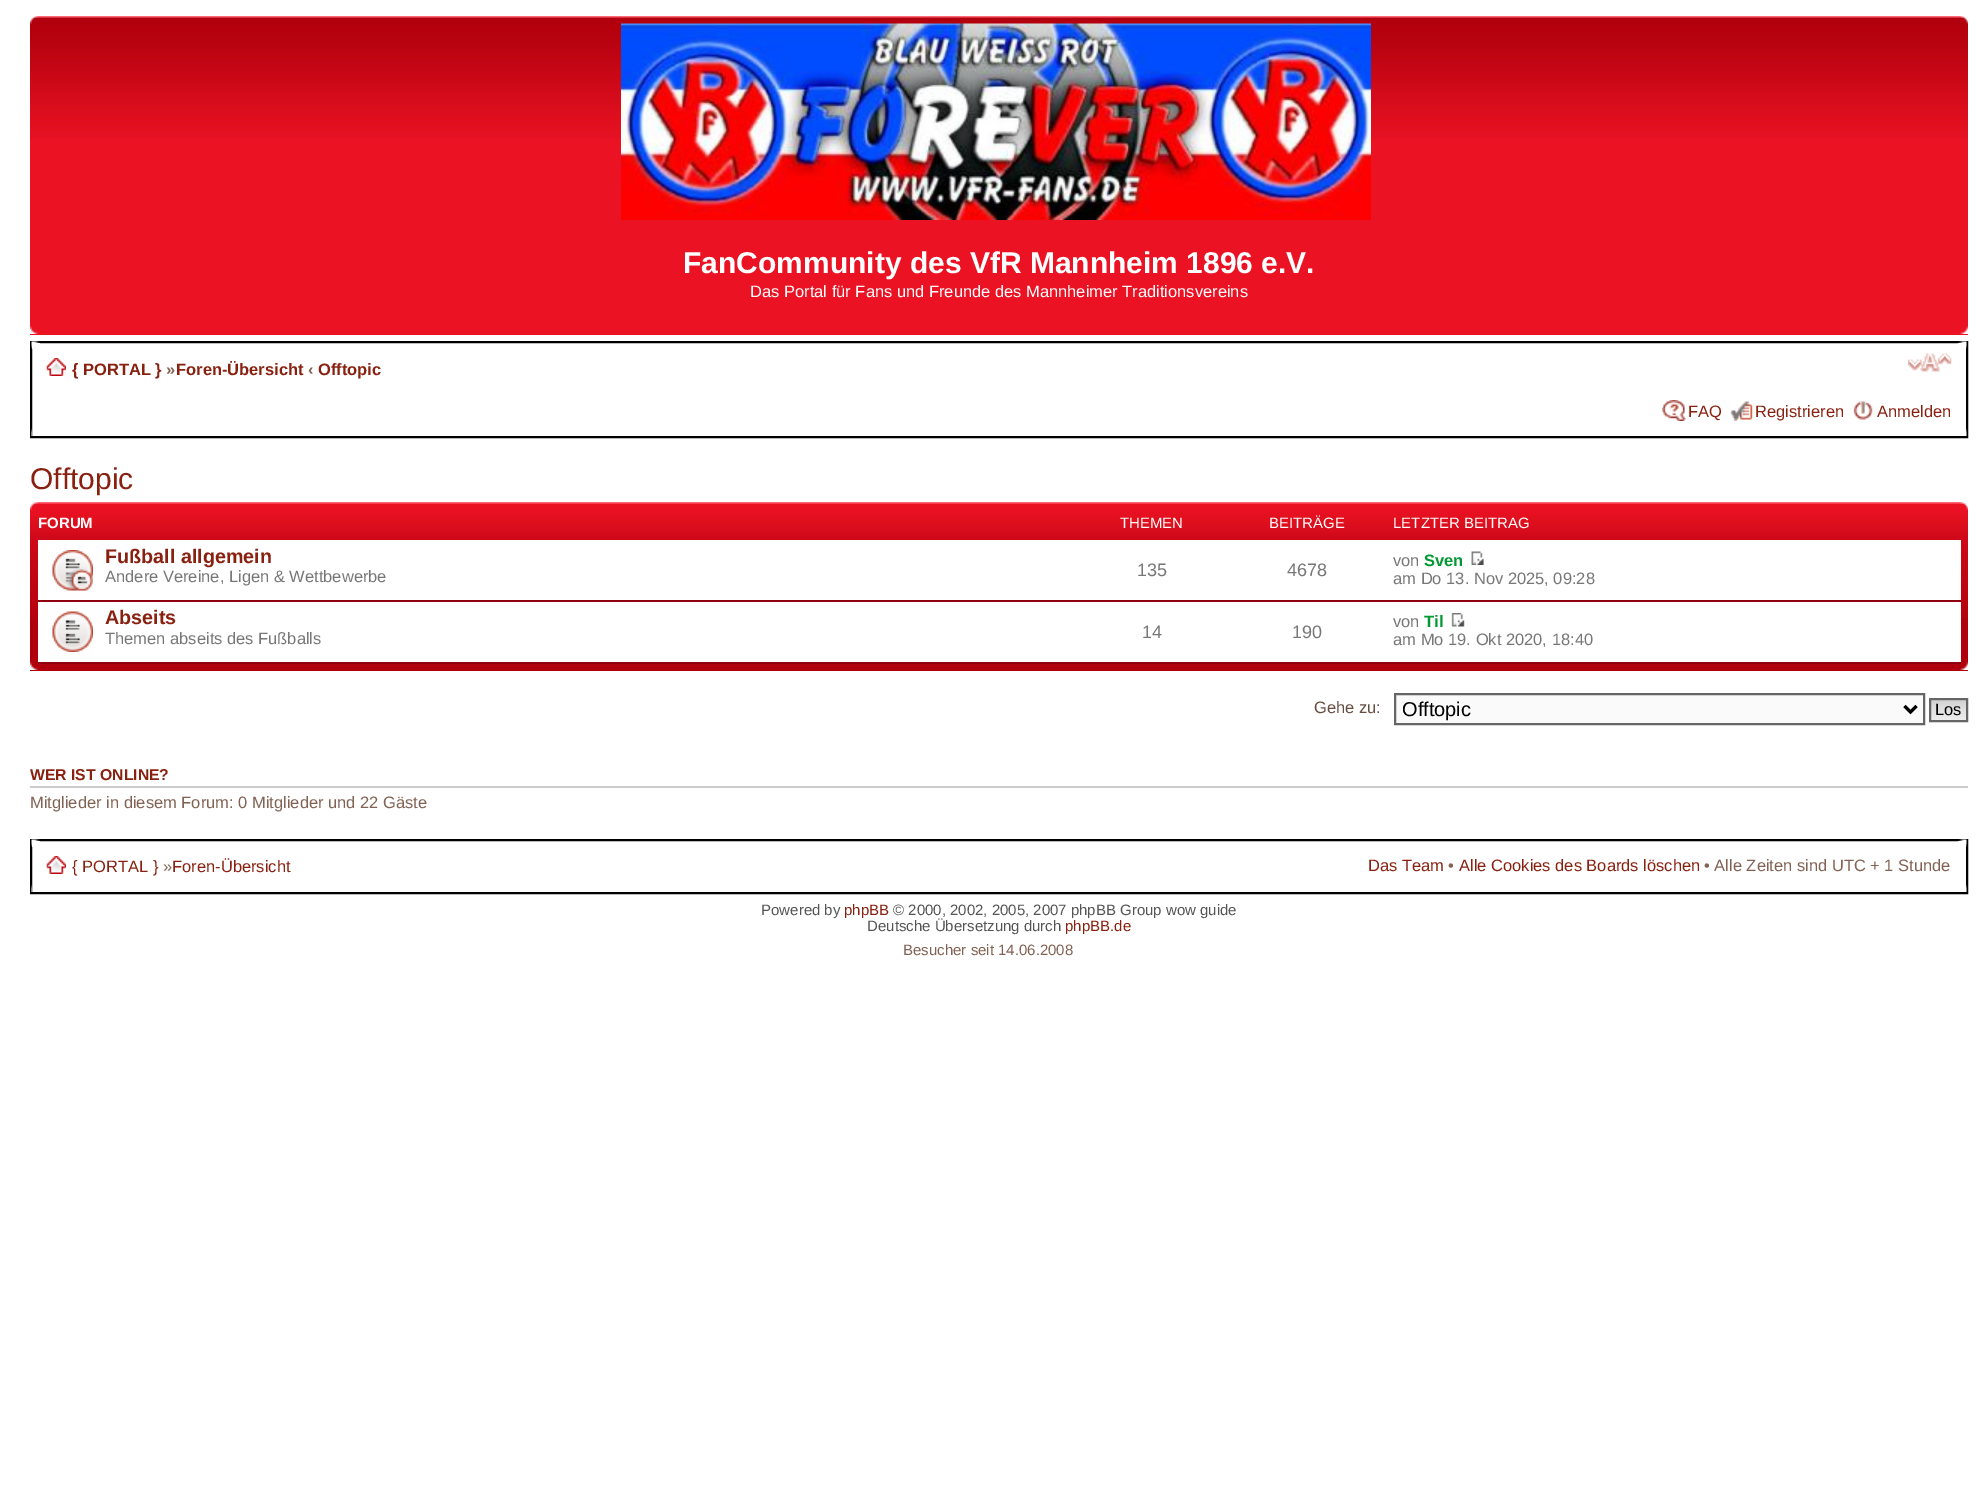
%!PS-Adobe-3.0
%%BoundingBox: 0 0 1977 1488
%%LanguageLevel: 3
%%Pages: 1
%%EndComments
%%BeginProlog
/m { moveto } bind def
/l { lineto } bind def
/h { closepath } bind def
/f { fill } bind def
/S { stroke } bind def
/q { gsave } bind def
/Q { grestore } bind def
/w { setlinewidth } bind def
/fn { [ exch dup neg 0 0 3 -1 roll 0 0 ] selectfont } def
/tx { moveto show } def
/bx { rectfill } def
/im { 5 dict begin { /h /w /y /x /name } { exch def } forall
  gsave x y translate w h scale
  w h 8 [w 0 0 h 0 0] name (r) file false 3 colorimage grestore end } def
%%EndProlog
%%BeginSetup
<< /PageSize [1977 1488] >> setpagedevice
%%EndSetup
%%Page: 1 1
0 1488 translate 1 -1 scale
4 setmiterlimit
1 setgray
0 0 1977 1488 bx
0.922 0.071 0.141 setrgbcolor
30 139 1938 196 bx
(image0.raw) 30 16 1938 123 im
(image1.raw) 30 16 8 8 im
(image2.raw) 1960 16 8 8 im
(image3.raw) 621 23 750 197 im
/LiberationSans-Bold 30 fn
1 setgray
(FanCommunity des VfR Mannheim 1896 e.V.) 683 273 tx
/LiberationSans-Regular 16.5 fn
(Das Portal für Fans und Freunde des Mannheimer Traditionsvereins) 750 297 tx
(image4.raw) 30 326 8 8 im
(image5.raw) 1960 326 8 8 im
0 setgray
2 w
31 342 1936 95 rectstroke
(image6.raw) 31 341 9 8 im
(image7.raw) 1958 341 9 8 im
(image8.raw) 46 358 20 18 im
/LiberationSans-Bold 16.5 fn
0.537 0.129 0.063 setrgbcolor
({ PORTAL }) 72 375 tx
0.51 0.384 0.325 setrgbcolor
(») 166 375 tx
0.537 0.129 0.063 setrgbcolor
(Foren-Übersicht) 176 375 tx
0.51 0.384 0.325 setrgbcolor
(‹) 308 375 tx
0.537 0.129 0.063 setrgbcolor
(Offtopic) 318 375 tx
(image9.raw) 1908 353 44 19 im
(image10.raw) 1662 400 24 21 im
/LiberationSans-Regular 16.5 fn
(FAQ) 1688 417 tx
(image11.raw) 1730 401 23 20 im
(Registrieren) 1755 417 tx
(image12.raw) 1853 401 20 19 im
(Anmelden) 1877 417 tx
(image13.raw) 31 428 1 8 im
(image13.raw) 1966 428 1 8 im
/LiberationSans-Regular 30 fn
(Offtopic) 30 489 tx
0.694 0 0.051 setrgbcolor
30 618 1938 53 bx
(image14.raw) 30 502 1938 116 im
(image15.raw) 30 502 8 8 im
(image16.raw) 1960 502 8 8 im
/LiberationSans-Bold 15 fn
1 setgray
(FORUM) 38 528 tx
/LiberationSans-Regular 15 fn
(THEMEN) 1120 528 tx
(BEITRÄGE) 1269 528 tx
(LETZTER BEITRAG) 1393 528 tx
38 540 1923 122 bx
0.561 0 0.059 setrgbcolor
38 600 1923 2 bx
(image17.raw) 52 550 41 41 im
/LiberationSans-Bold 19.75 fn
0.537 0.129 0.063 setrgbcolor
(Fußball allgemein) 105 563 tx
/LiberationSans-Regular 16.5 fn
0.467 setgray
(Andere Vereine, Ligen & Wettbewerbe) 105 582 tx
/LiberationSans-Regular 18 fn
(135) 1137 576 tx
(4678) 1287 576 tx
/LiberationSans-Regular 16.5 fn
(von) 1393 566 tx
/LiberationSans-Bold 16.5 fn
0 0.6 0.2 setrgbcolor
(Sven) 1424 566 tx
(image18.raw) 1471 551 13 14 im
/LiberationSans-Regular 16.5 fn
0.467 setgray
(am Do 13. Nov 2025, 09:28) 1393 584 tx
0.561 0 0.059 setrgbcolor
38 662 1923 2 bx
(image19.raw) 52 611 41 41 im
/LiberationSans-Bold 19.75 fn
0.537 0.129 0.063 setrgbcolor
(Abseits) 105 624 tx
/LiberationSans-Regular 16.5 fn
0.467 setgray
(Themen abseits des Fußballs) 105 644 tx
/LiberationSans-Regular 18 fn
(14) 1142 638 tx
(190) 1292 638 tx
/LiberationSans-Regular 16.5 fn
(von) 1393 627 tx
/LiberationSans-Bold 16.5 fn
0 0.6 0.2 setrgbcolor
(Til) 1424 627 tx
(image20.raw) 1451 613 14 14 im
/LiberationSans-Regular 16.5 fn
0.467 setgray
(am Mo 19. Okt 2020, 18:40) 1393 645 tx
(image21.raw) 30 662 8 8 im
(image22.raw) 1960 662 8 8 im
0.404 0.302 0.259 setrgbcolor
(Gehe zu:) 1314 713 tx
0.98 setgray
1395 694 m 1924 694 l 1924 724 l 1395 724 l h q f Q
0.4 setgray
S
0 setgray
3 w
1904.5 706 m 1910.5 712 l 1916.5 706 l S
/LiberationSans-Regular 20 fn
(Offtopic) 1402 716 tx
(image23.raw) 1931 700 35 20 im
0.4 setgray
2 w
1930 699 37 22 rectstroke
/LiberationSans-Regular 16.5 fn
0 setgray
(Los) 1935 715 tx
0.8 setgray
30 786 1938 2 bx
/LiberationSans-Bold 15.75 fn
0.537 0.129 0.063 setrgbcolor
(WER IST ONLINE?) 30 780 tx
/LiberationSans-Regular 16.5 fn
0.51 0.384 0.325 setrgbcolor
(Mitglieder in diesem Forum: 0 Mitglieder und 22 Gäste) 30 808 tx
0 setgray
31 840 1936 53 rectstroke
(image6.raw) 31 839 9 8 im
(image7.raw) 1958 839 9 8 im
(image8.raw) 46 856 20 18 im
0.537 0.129 0.063 setrgbcolor
({ PORTAL }) 72 872 tx
0.51 0.384 0.325 setrgbcolor
(») 163 872 tx
0.537 0.129 0.063 setrgbcolor
(Foren-Übersicht) 172 872 tx
(Das Team) 1368 871 tx
0.51 0.384 0.325 setrgbcolor
(•) 1448 871 tx
0.537 0.129 0.063 setrgbcolor
(Alle Cookies des Boards löschen) 1459 871 tx
0.51 0.384 0.325 setrgbcolor
(• Alle Zeiten sind UTC + 1 Stunde) 1704 871 tx
(image13.raw) 31 884 1 8 im
(image13.raw) 1966 884 1 8 im
/LiberationSans-Regular 15 fn
0.333 setgray
(Powered by) 761 915 tx
0.537 0.129 0.063 setrgbcolor
(phpBB) 844 915 tx
0.333 setgray
(© 2000, 2002, 2005, 2007 phpBB Group wow guide) 893 915 tx
(Deutsche Übersetzung durch) 867 931 tx
0.537 0.129 0.063 setrgbcolor
(phpBB.de) 1065 931 tx
0.51 0.384 0.325 setrgbcolor
(Besucher seit 14.06.2008) 903 955 tx
showpage
%%EOF
